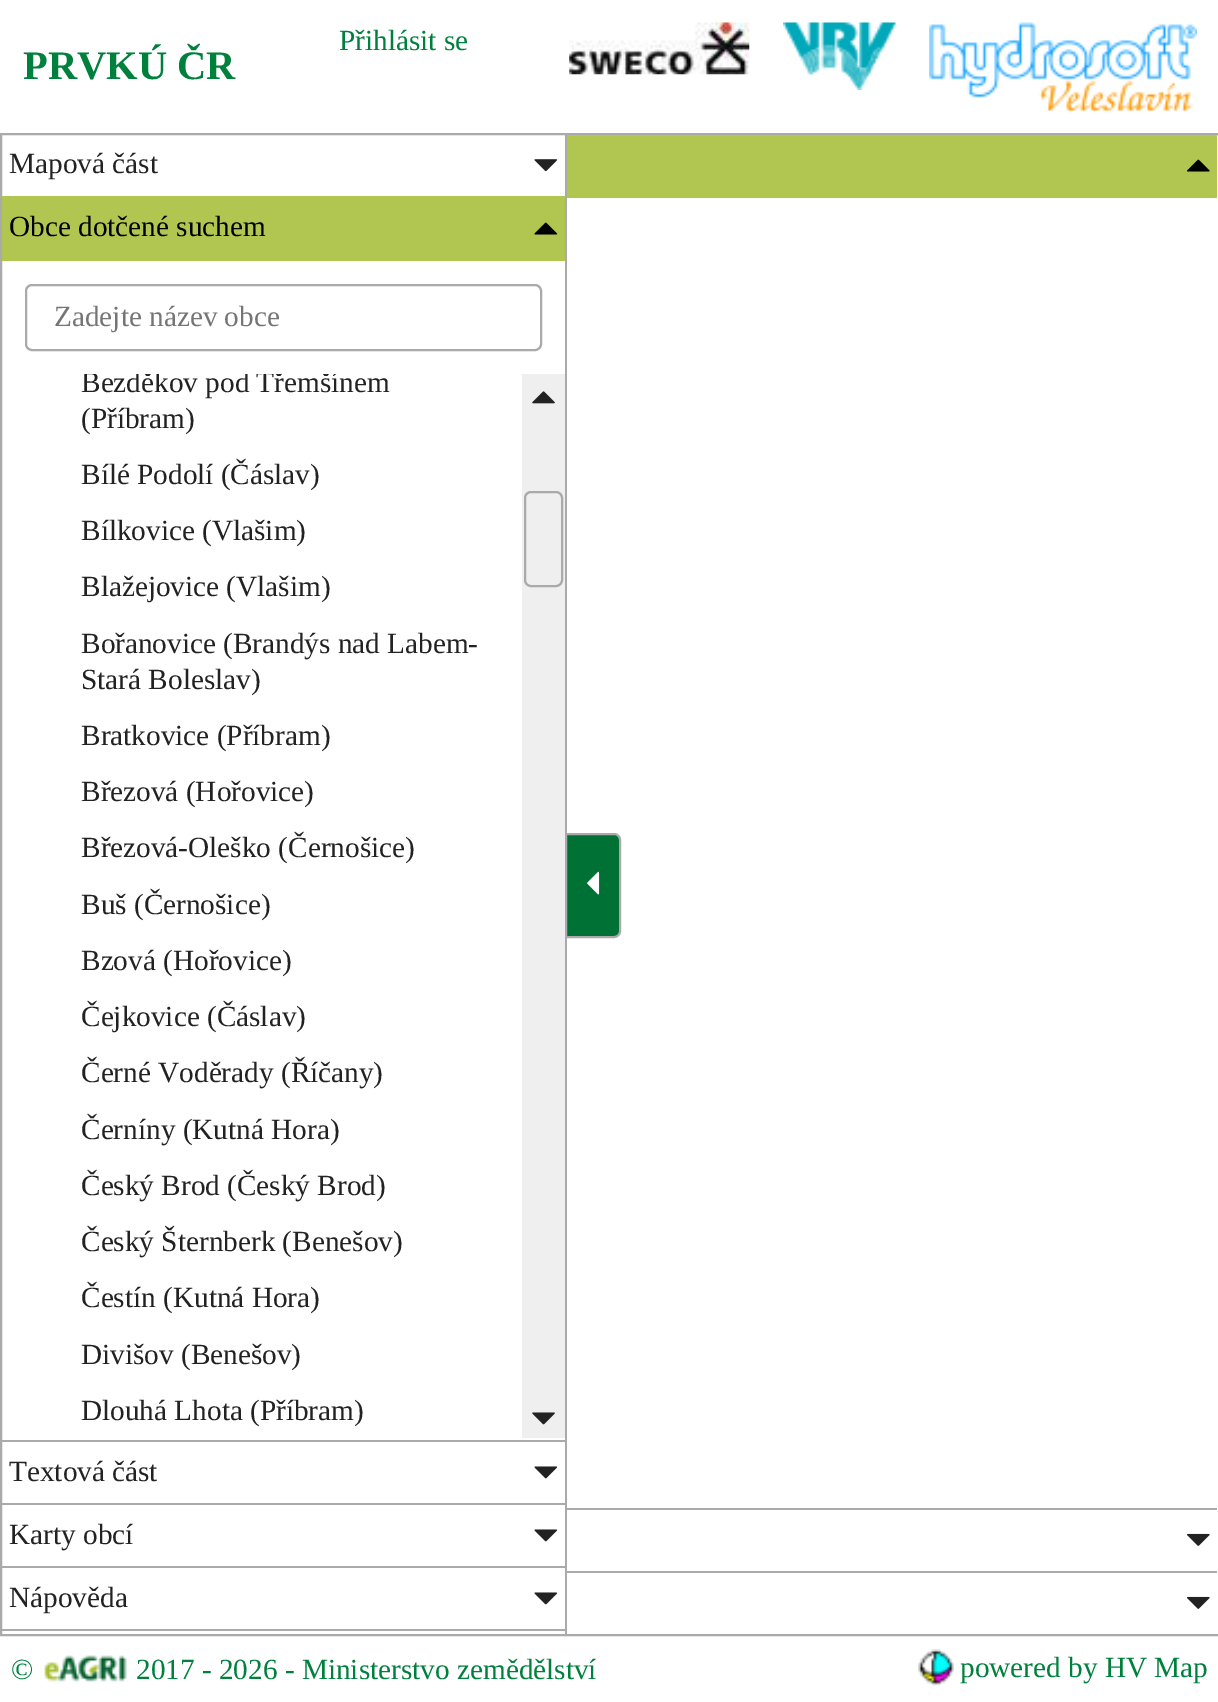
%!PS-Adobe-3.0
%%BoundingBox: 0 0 1218 1702
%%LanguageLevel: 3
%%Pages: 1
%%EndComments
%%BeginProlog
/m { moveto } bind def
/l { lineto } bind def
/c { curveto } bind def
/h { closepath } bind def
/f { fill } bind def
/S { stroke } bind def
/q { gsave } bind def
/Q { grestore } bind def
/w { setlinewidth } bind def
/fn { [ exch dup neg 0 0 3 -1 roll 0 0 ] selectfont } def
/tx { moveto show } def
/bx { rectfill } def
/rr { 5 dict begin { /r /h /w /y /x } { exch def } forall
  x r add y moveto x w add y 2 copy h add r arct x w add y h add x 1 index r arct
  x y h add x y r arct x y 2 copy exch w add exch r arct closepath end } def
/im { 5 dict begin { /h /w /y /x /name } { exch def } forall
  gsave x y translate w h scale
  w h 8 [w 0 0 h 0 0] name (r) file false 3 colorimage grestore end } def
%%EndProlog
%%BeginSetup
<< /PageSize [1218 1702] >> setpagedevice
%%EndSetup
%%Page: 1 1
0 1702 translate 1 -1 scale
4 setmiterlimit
1 setgray
0 0 1218 1702 bx
/LiberationSerif-Regular 29.25 fn
0 0.502 0.239 setrgbcolor
(Přihlásit se) 339 50 tx
(image0.raw) 569 22 181 53 im
(image1.raw) 783 22 113 68 im
(image2.raw) 929 22 268 91 im
/LiberationSerif-Bold 40.5 fn
(PRVKÚ ČR) 23 79 tx
0.667 setgray
2 w
1 134 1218 1501 rectstroke
565 135 2 1499 bx
0 0.443 0.208 setrgbcolor
566 834 m 614 834 l 617.5 834 620 836.5 620 840 c 620 931 l 620 934.5 617.5 937 614 937 c 566 937 l h q f Q
0.667 setgray
S
(image3.raw) 587 871 13 24 im
/LiberationSerif-Regular 29.25 fn
0.133 setgray
(Mapová část) 9 173 tx
(image4.raw) 534 159 24 13 im
0.69 0.776 0.318 setrgbcolor
2 196 563 65 bx
0 setgray
(Obce dotčené suchem) 9 236 tx
(image5.raw) 534 222 24 13 im
0.667 setgray
2 1440 563 2 bx
26 285 515 65 6 rr S
0.459 setgray
(Zadejte název obce) 54 326 tx
q
14 374 483 1064 rectclip
0.133 setgray
(Bezděkov pod Třemšínem) 81 392 tx
Q
0.133 setgray
(\(Příbram\)) 81 428 tx
(Bílé Podolí \(Čáslav\)) 81 484 tx
(Bílkovice \(Vlašim\)) 81 540 tx
(Blažejovice \(Vlašim\)) 81 596 tx
(Bořanovice \(Brandýs nad Labem-) 81 653 tx
(Stará Boleslav\)) 81 689 tx
(Bratkovice \(Příbram\)) 81 745 tx
(Březová \(Hořovice\)) 81 801 tx
(Březová-Oleško \(Černošice\)) 81 857 tx
(Buš \(Černošice\)) 81 914 tx
(Bzová \(Hořovice\)) 81 970 tx
(Čejkovice \(Čáslav\)) 81 1026 tx
(Černé Voděrady \(Říčany\)) 81 1082 tx
(Černíny \(Kutná Hora\)) 81 1139 tx
(Český Brod \(Český Brod\)) 81 1195 tx
(Český Šternberk \(Benešov\)) 81 1251 tx
(Čestín \(Kutná Hora\)) 81 1307 tx
(Divišov \(Benešov\)) 81 1364 tx
(Dlouhá Lhota \(Příbram\)) 81 1420 tx
0.937 setgray
522 374 43 1064 bx
(image6.raw) 532 391 23 13 im
0.667 setgray
525 492 37 94 6 rr S
(image7.raw) 532 1412 23 13 im
2 1503 563 2 bx
0.133 setgray
(Textová část) 9 1481 tx
(image8.raw) 534 1466 24 13 im
0.667 setgray
2 1566 563 2 bx
0.133 setgray
(Karty obcí) 9 1544 tx
(image8.raw) 534 1529 24 13 im
0.667 setgray
2 1629 563 2 bx
0.133 setgray
(Nápověda) 9 1607 tx
(image8.raw) 534 1592 24 13 im
0.69 0.776 0.318 setrgbcolor
567 135 650 63 bx
(image9.raw) 1187 159 23 13 im
0.667 setgray
567 1508 650 2 bx
567 1571 650 2 bx
(image10.raw) 1187 1533 23 13 im
(image10.raw) 1187 1596 23 13 im
0 0.502 0.239 setrgbcolor
(©) 11 1679 tx
(image11.raw) 44 1655 83 27 im
(2017 - 2026 - Ministerstvo zemědělství) 136 1679 tx
(image12.raw) 918 1649 36 37 im
(powered by HV Map) 960 1677 tx
showpage
%%EOF
